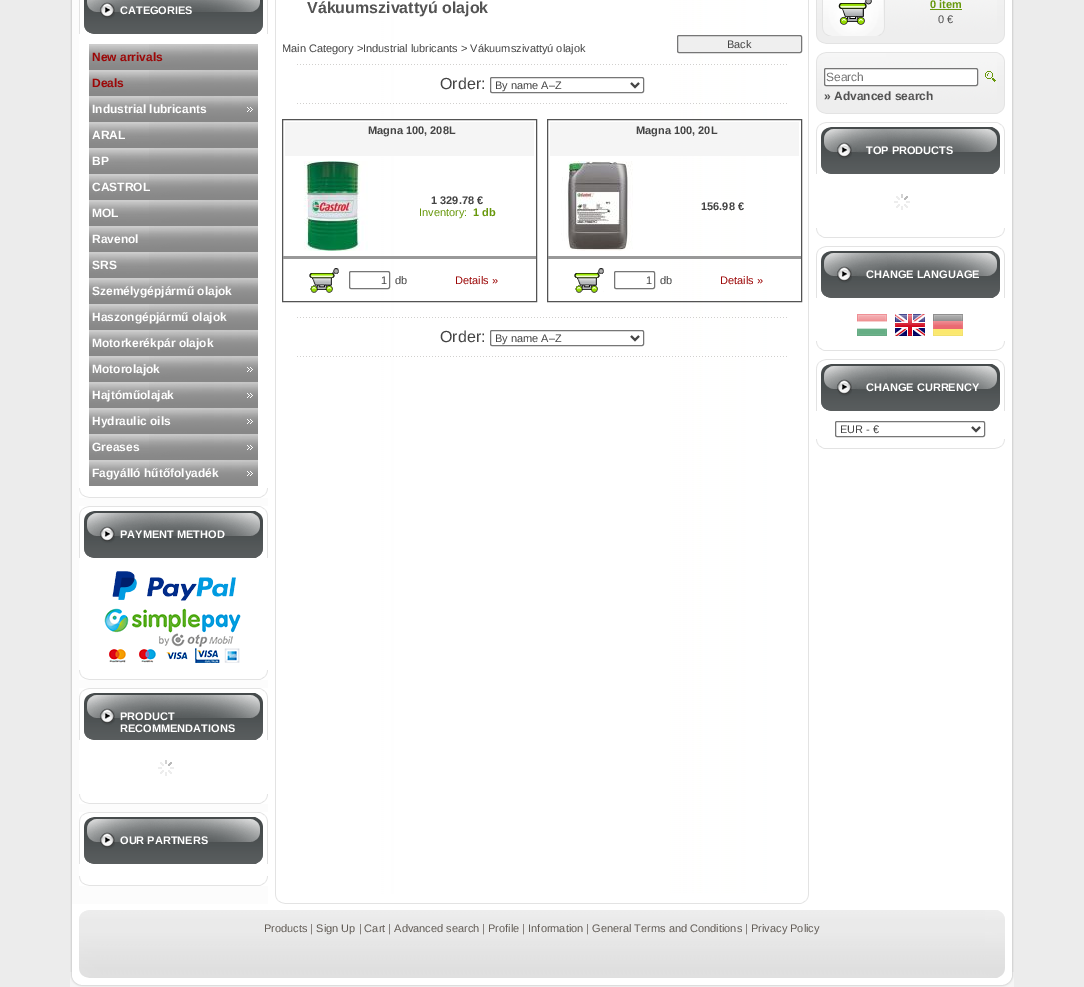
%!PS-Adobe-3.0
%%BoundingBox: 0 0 1084 987
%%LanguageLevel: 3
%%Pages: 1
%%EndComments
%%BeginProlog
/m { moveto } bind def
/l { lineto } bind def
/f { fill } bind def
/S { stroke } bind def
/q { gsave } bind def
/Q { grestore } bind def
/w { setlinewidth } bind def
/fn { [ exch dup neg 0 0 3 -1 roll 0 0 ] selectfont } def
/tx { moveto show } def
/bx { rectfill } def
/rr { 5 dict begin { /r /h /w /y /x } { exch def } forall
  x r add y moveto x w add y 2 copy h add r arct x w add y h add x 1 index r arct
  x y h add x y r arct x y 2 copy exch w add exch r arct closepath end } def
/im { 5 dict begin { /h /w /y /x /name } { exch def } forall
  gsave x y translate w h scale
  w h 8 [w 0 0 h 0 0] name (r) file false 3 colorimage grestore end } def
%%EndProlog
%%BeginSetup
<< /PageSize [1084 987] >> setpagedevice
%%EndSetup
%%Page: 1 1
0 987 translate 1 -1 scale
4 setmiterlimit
0.925 setgray
0 0 1084 987 bx
(image0.raw) 70 0 944 894 im
(image1.raw) 79 0 189 34 im
/LiberationSans-Bold 11 fn
1 setgray
(CATEGORIES) 120 14 tx
79 34 189 454 bx
(image2.raw) 89 44 169 26 im
/LiberationSans-Bold 12 fn
0.612 0.027 0.027 setrgbcolor
(New arrivals) 92 61 tx
(image2.raw) 89 70 169 26 im
(Deals) 92 87 tx
(image3.raw) 89 96 169 26 im
1 setgray
(Industrial lubricants) 92 113 tx
(image2.raw) 89 122 169 26 im
(ARAL) 92 139 tx
(image2.raw) 89 148 169 26 im
(BP) 92 165 tx
(image2.raw) 89 174 169 26 im
(CASTROL) 92 191 tx
(image2.raw) 89 200 169 26 im
(MOL) 92 217 tx
(image2.raw) 89 226 169 26 im
(Ravenol) 92 243 tx
(image2.raw) 89 252 169 26 im
(SRS) 92 269 tx
(image2.raw) 89 278 169 26 im
(Személygépjármű olajok) 92 295 tx
(image2.raw) 89 304 169 26 im
(Haszongépjármű olajok) 92 321 tx
(image2.raw) 89 330 169 26 im
(Motorkerékpár olajok) 92 347 tx
(image3.raw) 89 356 169 26 im
(Motorolajok) 92 373 tx
(image3.raw) 89 382 169 26 im
(Hajtóműolajak) 92 399 tx
(image3.raw) 89 408 169 26 im
(Hydraulic oils) 92 425 tx
(image3.raw) 89 434 169 26 im
(Greases) 92 451 tx
(image3.raw) 89 460 169 26 im
(Fagyálló hűtőfolyadék) 92 477 tx
(image4.raw) 79 488 189 10 im
(image5.raw) 79 506 189 52 im
/LiberationSans-Bold 11 fn
(PAYMENT METHOD) 120 538 tx
79 558 189 112 bx
(image6.raw) 112 571 124 30 im
(image7.raw) 104 608 137 55 im
(image4.raw) 79 670 189 10 im
(image5.raw) 79 688 189 52 im
(PRODUCT) 120 720 tx
(RECOMMENDATIONS) 120 732 tx
79 740 189 54 bx
(image8.raw) 158 760 16 16 im
(image4.raw) 79 794 189 10 im
(image5.raw) 79 812 189 52 im
(OUR PARTNERS) 120 844 tx
79 864 189 12 bx
(image4.raw) 79 876 189 10 im
/LiberationSans-Bold 16 fn
0.325 setgray
(Vákuumszivattyú olajok) 307 13 tx
/LiberationSans-Regular 11 fn
0.267 setgray
(Main Category >Industrial lubricants > Vákuumszivattyú olajok) 282 52 tx
0.937 setgray
677.5 35.5 124 17 1.5 rr q f Q
0.463 setgray
S
0.267 setgray
(Back) 727 48 tx
(image9.raw) 297 64 490 1 im
/LiberationSans-Regular 16 fn
(Order:) 440 89 tx
0.463 setgray
490.5 77.5 153 15 1.5 rr S
0.267 setgray
2 w
631 83 m 635 87 l 639 83 l S
/LiberationSans-Regular 11 fn
(By name A–Z) 495 89 tx
(image9.raw) 297 103 490 1 im
0.325 setgray
1 w
282.5 119.5 254 182 rectstroke
0.961 setgray
285 122 249 34 bx
/LiberationSans-Bold 11 fn
0.267 setgray
(Magna 100, 208L) 368 134 tx
(image10.raw) 303 161 65 90 im
(1 329.78 €) 431 204 tx
/LiberationSans-Regular 11 fn
0.408 0.596 0.043 setrgbcolor
(Inventory:) 419 216 tx
/LiberationSans-Bold 11 fn
(1 db) 473 216 tx
0.6 setgray
283 256 253 3 bx
(image11.raw) 309 268 30 25 im
0.463 setgray
349.5 271.5 40 17 1.5 rr S
/LiberationSans-Regular 11 fn
0.267 setgray
(1) 381 284 tx
(db) 395 284 tx
0.612 0.027 0.027 setrgbcolor
(Details ») 455 284 tx
0.325 setgray
547.5 119.5 254 182 rectstroke
0.961 setgray
550 122 249 34 bx
/LiberationSans-Bold 11 fn
0.267 setgray
(Magna 100, 20L) 636 134 tx
(image12.raw) 561 161 72 90 im
(156.98 €) 701 210 tx
0.6 setgray
548 256 253 3 bx
(image11.raw) 574 268 30 25 im
0.463 setgray
614.5 271.5 40 17 1.5 rr S
/LiberationSans-Regular 11 fn
0.267 setgray
(1) 646 284 tx
(db) 660 284 tx
0.612 0.027 0.027 setrgbcolor
(Details ») 720 284 tx
(image9.raw) 297 317 490 1 im
/LiberationSans-Regular 16 fn
0.267 setgray
(Order:) 440 342 tx
0.463 setgray
490.5 330.5 153 15 1.5 rr S
0.267 setgray
2 w
631 336 m 635 340 l 639 336 l S
/LiberationSans-Regular 11 fn
(By name A–Z) 495 342 tx
(image9.raw) 297 356 490 1 im
(image13.raw) 816 0 189 44 im
(image14.raw) 822 0 63 36 im
/LiberationSans-Bold 11 fn
0.408 0.596 0.043 setrgbcolor
(0 item) 930 8 tx
930 9 32 1 bx
/LiberationSans-Regular 11 fn
0.325 setgray
(0 €) 938 23 tx
(image15.raw) 816 52 189 62 im
1 setgray
824.5 68.5 153 17 1.5 rr q f Q
0.463 setgray
1 w
S
/LiberationSans-Regular 12 fn
0.459 setgray
(Search) 826 81 tx
(image16.raw) 985 71 11 11 im
/LiberationSans-Bold 12 fn
0.325 setgray
(» Advanced search) 824 100 tx
(image5.raw) 816 122 189 52 im
/LiberationSans-Bold 11 fn
1 setgray
(TOP PRODUCTS) 866 154 tx
(image8.raw) 894 194 16 16 im
(image17.raw) 816 228 189 10 im
(image5.raw) 816 246 189 52 im
(CHANGE LANGUAGE) 866 278 tx
(image18.raw) 857 314 30 22 im
(image19.raw) 895 314 30 22 im
(image20.raw) 933 314 30 22 im
(image17.raw) 816 341 189 10 im
(image5.raw) 816 359 189 52 im
(CHANGE CURRENCY) 866 391 tx
0.463 setgray
835.5 421.5 149 15 1.5 rr S
0.267 setgray
2 w
972 427 m 976 431 l 980 427 l S
/LiberationSans-Regular 11 fn
(EUR - €) 840 433 tx
(image17.raw) 816 439 189 10 im
(image21.raw) 70 894 944 13 im
(image22.raw) 70 907 944 40 im
0.384 0.361 0.337 setrgbcolor
(Products | Sign Up | Cart | Advanced search | Profile | Information | General Terms and Conditions | Privacy Policy) 264 932 tx
(image23.raw) 70 947 944 40 im
showpage
%%EOF
